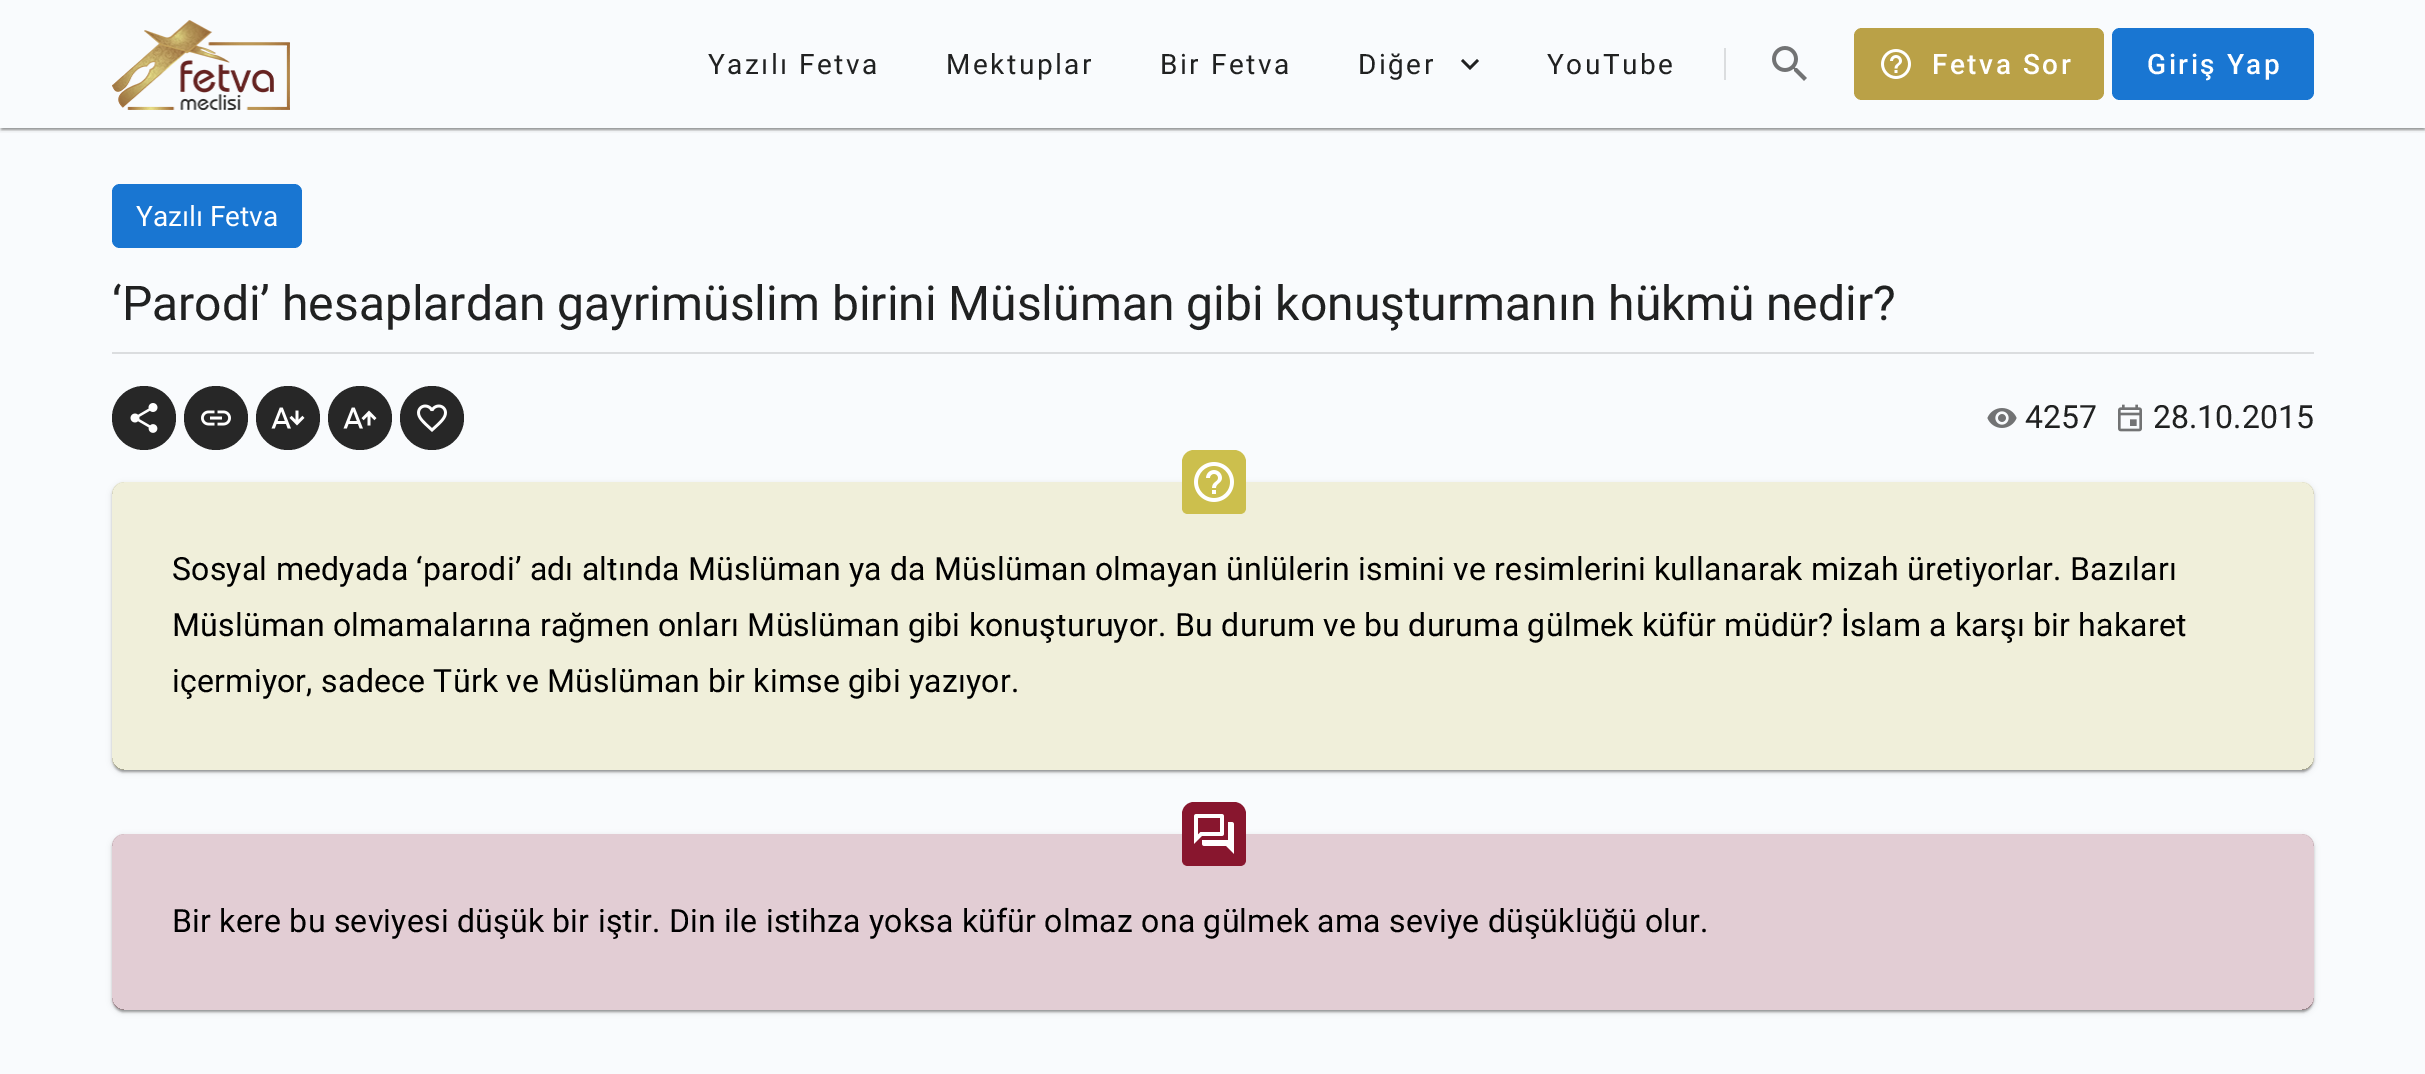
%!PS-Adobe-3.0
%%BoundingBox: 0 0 2425 1074
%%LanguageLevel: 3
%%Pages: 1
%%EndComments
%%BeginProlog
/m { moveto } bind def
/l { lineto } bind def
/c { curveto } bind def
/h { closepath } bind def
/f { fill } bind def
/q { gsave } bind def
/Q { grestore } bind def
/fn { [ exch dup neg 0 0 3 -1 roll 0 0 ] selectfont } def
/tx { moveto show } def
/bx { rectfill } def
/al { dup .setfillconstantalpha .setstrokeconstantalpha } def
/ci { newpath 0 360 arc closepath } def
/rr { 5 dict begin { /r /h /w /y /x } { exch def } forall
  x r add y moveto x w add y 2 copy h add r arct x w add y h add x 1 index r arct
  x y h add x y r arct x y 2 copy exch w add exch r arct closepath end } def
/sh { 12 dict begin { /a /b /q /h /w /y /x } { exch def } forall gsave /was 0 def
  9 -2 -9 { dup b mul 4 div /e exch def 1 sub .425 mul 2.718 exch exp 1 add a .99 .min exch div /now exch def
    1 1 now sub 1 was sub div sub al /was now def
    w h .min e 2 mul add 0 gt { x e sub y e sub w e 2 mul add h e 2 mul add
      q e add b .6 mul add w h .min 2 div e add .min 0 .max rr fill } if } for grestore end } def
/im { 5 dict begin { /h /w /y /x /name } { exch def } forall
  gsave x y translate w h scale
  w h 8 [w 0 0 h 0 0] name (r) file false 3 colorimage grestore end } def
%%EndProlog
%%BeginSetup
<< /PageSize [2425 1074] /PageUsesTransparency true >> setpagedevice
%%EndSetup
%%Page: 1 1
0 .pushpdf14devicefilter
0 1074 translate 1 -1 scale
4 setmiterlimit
0.976 0.984 0.992 setrgbcolor
0 0 2425 1074 bx
q
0 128 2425 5 rectclip
0 setgray
0 2 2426 128 0 3 0.12 sh
Q
q
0 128 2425 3 rectclip
0 setgray
0 2 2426 128 0 1 0.14 sh
Q
q
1 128 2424 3 rectclip
0 setgray
2 6 2422 124 0 1 0.2 sh
Q
(image0.raw) 112 20 178 90 im
/Roboto-Regular 28 fn
0.125 0.129 0.129 setrgbcolor
708 74 m 2.5 0 (Yazılı Fetva) ashow
946 74 m 2.5 0 (Mektuplar) ashow
1160 74 m 2.5 0 (Bir Fetva) ashow
1358 74 m 2.5 0 (Diğer) ashow
1463 59 m 1470 66 l 1477 59 l 1479 61 l 1470 70 l 1461 61 l h f
1547 74 m 2.5 0 (YouTube) ashow
0.859 0.867 0.875 setrgbcolor
1724 48 2 32 bx
(image1.raw) 1772 46 35 35 im
0.729 0.631 0.278 setrgbcolor
1854 28 250 72 8 rr f
(image2.raw) 1881 49 30 30 im
/Roboto-Medium 28 fn
1 setgray
1932 74 m 2.5 0 (Fetva Sor) ashow
0.098 0.463 0.824 setrgbcolor
2112 28 202 72 8 rr f
1 setgray
2147 74 m 2.5 0 (Giriş Yap) ashow
0.098 0.463 0.824 setrgbcolor
112 184 190 64 8 rr f
/Roboto-Regular 28 fn
1 setgray
(Yazılı Fetva) 136 226 tx
/Roboto-Regular 48 fn
0.125 0.129 0.129 setrgbcolor
(‘Parodi’ hesaplardan gayrimüslim birini Müslüman gibi konuşturmanın hükmü nedir?) 112 320 tx
0.859 0.867 0.875 setrgbcolor
112 352 2202 2 bx
0.153 setgray
144 418 32 ci f
(image3.raw) 130 403 28 30 im
216 418 32 ci f
(image4.raw) 201 410 30 16 im
288 418 32 ci f
(image5.raw) 271 407 34 22 im
360 418 32 ci f
(image6.raw) 343 407 34 22 im
432 418 32 ci f
(image7.raw) 417 404 30 28 im
(image8.raw) 1987 408 30 20 im
/Roboto-Regular 32 fn
0.125 0.129 0.129 setrgbcolor
(4257) 2025 428 tx
(image9.raw) 2118 404 24 28 im
(28.10.2015) 2153 428 tx
q
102 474 m 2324 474 l 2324 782 l 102 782 l h 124 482 m 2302 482 l 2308.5 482 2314 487.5 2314 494 c 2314 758 l 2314 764.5 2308.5 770 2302 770 c 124 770 l 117.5 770 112 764.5 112 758 c 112 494 l 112 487.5 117.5 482 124 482 c h eoclip newpath
0 setgray
112 484 2202 288 12 3 0.12 sh
Q
q
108 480 m 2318 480 l 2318 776 l 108 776 l h 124 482 m 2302 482 l 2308.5 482 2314 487.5 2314 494 c 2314 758 l 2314 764.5 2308.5 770 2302 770 c 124 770 l 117.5 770 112 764.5 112 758 c 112 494 l 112 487.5 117.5 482 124 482 c h eoclip newpath
0 setgray
112 484 2202 288 12 1 0.14 sh
Q
q
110 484 m 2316 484 l 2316 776 l 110 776 l h 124 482 m 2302 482 l 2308.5 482 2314 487.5 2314 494 c 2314 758 l 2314 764.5 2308.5 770 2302 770 c 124 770 l 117.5 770 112 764.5 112 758 c 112 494 l 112 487.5 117.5 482 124 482 c h eoclip newpath
0 setgray
114 488 2198 284 10 1 0.2 sh
Q
0.2 al
0.8 0.749 0.302 setrgbcolor
112 482 2202 288 12 rr f
1 al
1194 450 m 1234 450 l 1240.5 450 1246 455.5 1246 462 c 1246 508 l 1246 511.5 1243.5 514 1240 514 c 1188 514 l 1184.5 514 1182 511.5 1182 508 c 1182 462 l 1182 455.5 1187.5 450 1194 450 c h f
(image10.raw) 1194 462 40 40 im
0 setgray
172 580 m 0.23 0 (Sosyal medyada ‘parodi’ adı altında Müslüman ya da Müslüman olmayan ünlülerin ismini ve resimlerini kullanarak mizah üretiyorlar. Bazıları) ashow
172 636 m 0.23 0 (Müslüman olmamalarına rağmen onları Müslüman gibi konuşturuyor. Bu durum ve bu duruma gülmek küfür müdür? İslam a karşı bir hakaret) ashow
172 692 m 0.23 0 (içermiyor, sadece Türk ve Müslüman bir kimse gibi yazıyor.) ashow
q
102 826 m 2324 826 l 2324 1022 l 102 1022 l h 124 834 m 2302 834 l 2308.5 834 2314 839.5 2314 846 c 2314 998 l 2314 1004.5 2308.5 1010 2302 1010 c 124 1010 l 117.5 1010 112 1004.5 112 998 c 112 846 l 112 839.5 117.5 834 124 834 c h eoclip newpath
112 836 2202 176 12 3 0.12 sh
Q
q
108 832 m 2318 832 l 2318 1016 l 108 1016 l h 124 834 m 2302 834 l 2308.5 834 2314 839.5 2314 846 c 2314 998 l 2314 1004.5 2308.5 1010 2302 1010 c 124 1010 l 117.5 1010 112 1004.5 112 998 c 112 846 l 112 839.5 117.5 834 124 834 c h eoclip newpath
112 836 2202 176 12 1 0.14 sh
Q
q
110 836 m 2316 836 l 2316 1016 l 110 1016 l h 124 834 m 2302 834 l 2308.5 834 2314 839.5 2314 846 c 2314 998 l 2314 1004.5 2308.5 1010 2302 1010 c 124 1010 l 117.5 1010 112 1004.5 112 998 c 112 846 l 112 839.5 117.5 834 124 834 c h eoclip newpath
114 840 2198 172 10 1 0.2 sh
Q
0.2 al
0.533 0.086 0.18 setrgbcolor
112 834 2202 176 12 rr f
1 al
1194 802 m 1234 802 l 1240.5 802 1246 807.5 1246 814 c 1246 860 l 1246 863.5 1243.5 866 1240 866 c 1188 866 l 1184.5 866 1182 863.5 1182 860 c 1182 814 l 1182 807.5 1187.5 802 1194 802 c h f
(image11.raw) 1194 814 40 40 im
0 setgray
172 932 m 0.23 0 (Bir kere bu seviyesi düşük bir iştir. Din ile istihza yoksa küfür olmaz ona gülmek ama seviye düşüklüğü olur.) ashow
.poppdf14devicefilter showpage
%%EOF
